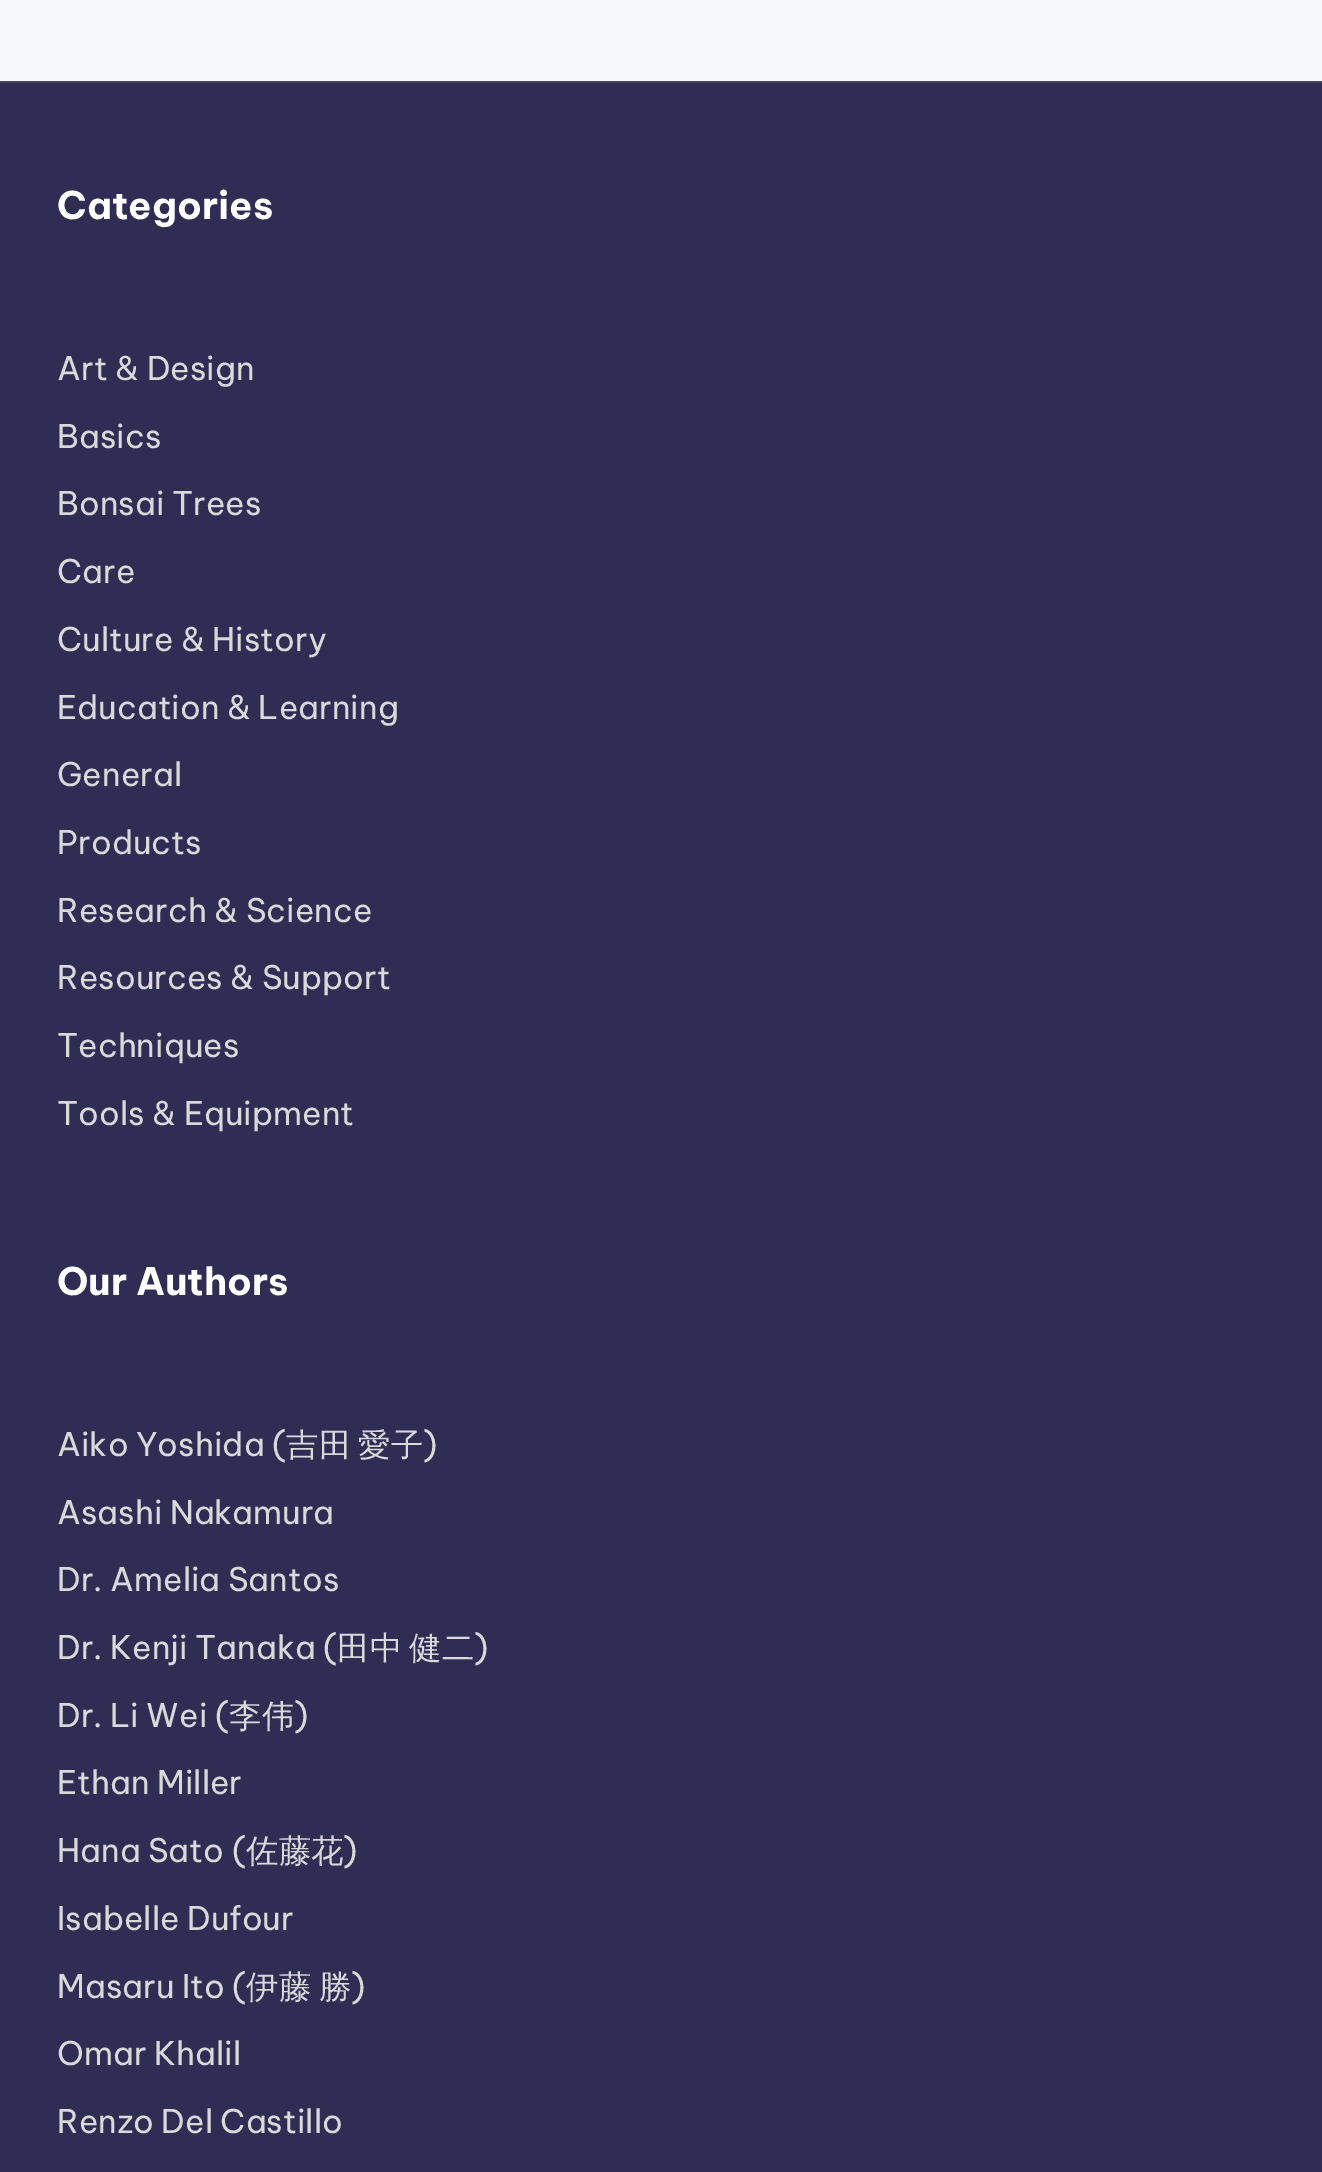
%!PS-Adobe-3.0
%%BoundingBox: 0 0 1322 2172
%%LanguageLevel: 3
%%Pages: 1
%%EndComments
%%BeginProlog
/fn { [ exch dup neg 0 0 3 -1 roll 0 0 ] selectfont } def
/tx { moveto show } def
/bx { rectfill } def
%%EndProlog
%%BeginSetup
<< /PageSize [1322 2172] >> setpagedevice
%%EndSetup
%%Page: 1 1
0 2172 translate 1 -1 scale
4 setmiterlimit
0.969 0.973 0.976 setrgbcolor
0 0 1322 2172 bx
0.188 0.176 0.333 setrgbcolor
0 83 1322 2089 bx
0.271 0.259 0.4 setrgbcolor
0 81 1322 2 bx
/BeVietnamPro-Bold 38 fn
1 setgray
(Categories) 57 219 tx
/BeVietnamPro-Regular 32.5 fn
0.851 setgray
(Art & Design) 57 380 tx
(Basics) 57 448 tx
(Bonsai Trees) 57 515 tx
(Care) 57 583 tx
(Culture & History) 57 651 tx
(Education & Learning) 57 719 tx
(General) 57 786 tx
(Products) 57 854 tx
(Research & Science) 57 922 tx
(Resources & Support) 57 989 tx
(Techniques) 57 1057 tx
(Tools & Equipment) 57 1125 tx
/BeVietnamPro-Bold 38 fn
1 setgray
(Our Authors) 57 1295 tx
/BeVietnamPro-Regular 32.5 fn
0.851 setgray
(Aiko Yoshida \() 57 1456 tx
/WenQuanYiZenHei-Medium 32.5 fn
(吉田) 286 1456 tx
(愛子) 358 1456 tx
/BeVietnamPro-Regular 32.5 fn
(\)) 423 1456 tx
(Asashi Nakamura) 57 1524 tx
(Dr. Amelia Santos) 57 1591 tx
(Dr. Kenji Tanaka \() 57 1659 tx
/WenQuanYiZenHei-Medium 32.5 fn
(田中) 337 1659 tx
(健二) 409 1659 tx
/BeVietnamPro-Regular 32.5 fn
(\)) 474 1659 tx
(Dr. Li Wei \() 57 1727 tx
/WenQuanYiZenHei-Medium 32.5 fn
(李伟) 229 1727 tx
/BeVietnamPro-Regular 32.5 fn
(\)) 294 1727 tx
(Ethan Miller) 57 1794 tx
(Hana Sato \() 57 1862 tx
/WenQuanYiZenHei-Medium 32.5 fn
(佐藤花) 246 1862 tx
/BeVietnamPro-Regular 32.5 fn
(\)) 343 1862 tx
(Isabelle Dufour) 57 1930 tx
(Masaru Ito \() 57 1998 tx
/WenQuanYiZenHei-Medium 32.5 fn
(伊藤) 246 1998 tx
(勝) 319 1998 tx
/BeVietnamPro-Regular 32.5 fn
(\)) 351 1998 tx
(Omar Khalil) 57 2065 tx
(Renzo Del Castillo) 57 2133 tx
showpage
%%EOF
